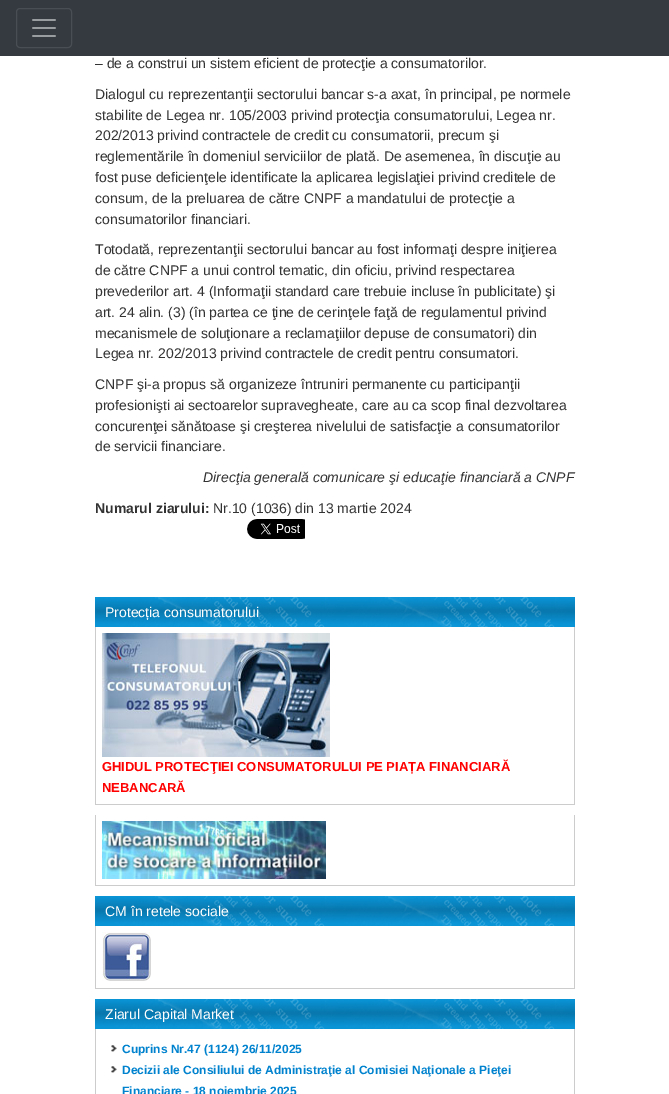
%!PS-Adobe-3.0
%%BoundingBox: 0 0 669 1094
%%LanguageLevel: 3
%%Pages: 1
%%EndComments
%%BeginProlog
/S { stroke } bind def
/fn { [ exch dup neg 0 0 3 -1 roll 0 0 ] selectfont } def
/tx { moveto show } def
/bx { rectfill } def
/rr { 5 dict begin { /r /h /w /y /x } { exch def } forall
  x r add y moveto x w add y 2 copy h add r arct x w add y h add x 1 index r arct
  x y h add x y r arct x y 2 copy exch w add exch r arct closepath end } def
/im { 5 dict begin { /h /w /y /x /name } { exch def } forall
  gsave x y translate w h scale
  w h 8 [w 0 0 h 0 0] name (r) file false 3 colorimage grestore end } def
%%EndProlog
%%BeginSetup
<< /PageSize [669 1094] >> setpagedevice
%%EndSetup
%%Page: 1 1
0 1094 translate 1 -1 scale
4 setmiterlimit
1 setgray
0 0 669 1094 bx
0.204 0.227 0.251 setrgbcolor
0 0 669 56 bx
0.282 0.306 0.325 setrgbcolor
16.5 8.5 55 39 3.5 rr S
(image0.raw) 32 19 24 18 im
/LiberationSans-Regular 14 fn
0.2 setgray
(– de a construi un sistem eficient de protecţie a consumatorilor.) 95 68 tx
(Dialogul cu reprezentanţii sectorului bancar s-a axat, în principal, pe normele) 95 99 tx
(stabilite de Legea nr. 105/2003 privind protecţia consumatorului, Legea nr.) 95 120 tx
(202/2013 privind contractele de credit cu consumatorii, precum şi) 95 140 tx
(reglementările în domeniul serviciilor de plată. De asemenea, în discuţie au) 95 161 tx
(fost puse deficienţele identificate la aplicarea legislaţiei privind creditele de) 95 182 tx
(consum, de la preluarea de către CNPF a mandatului de protecţie a) 95 203 tx
(consumatorilor financiari.) 95 224 tx
(Totodată, reprezentanţii sectorului bancar au fost informaţi despre iniţierea) 95 254 tx
(de către CNPF a unui control tematic, din oficiu, privind respectarea) 95 275 tx
(prevederilor art. 4 \(Informaţii standard care trebuie incluse în publicitate\) şi) 95 296 tx
(art. 24 alin. \(3\) \(în partea ce ţine de cerinţele faţă de regulamentul privind) 95 317 tx
(mecanismele de soluţionare a reclamaţiilor depuse de consumatori\) din) 95 338 tx
(Legea nr. 202/2013 privind contractele de credit pentru consumatori.) 95 358 tx
(CNPF şi-a propus să organizeze întruniri permanente cu participanţii) 95 389 tx
(profesionişti ai sectoarelor supravegheate, care au ca scop final dezvoltarea) 95 410 tx
(concurenţei sănătoase şi creşterea nivelului de satisfacţie a consumatorilor) 95 431 tx
(de servicii financiare.) 95 451 tx
/LiberationSans-Italic 14 fn
(Direcţia generală comunicare şi educaţie financiară a CNPF) 203 482 tx
/LiberationSans-Bold 14 fn
(Numarul ziarului:) 95 513 tx
/LiberationSans-Regular 14 fn
(Nr.10 \(1036\) din 13 martie 2024) 213 513 tx
(image1.raw) 247 519 58 20 im
(image2.raw) 95 597 480 30 im
1 setgray
(Protecția consumatorului) 105 617 tx
0.8 setgray
574 627 1 178 bx
95 804 480 1 bx
95 627 1 178 bx
(image3.raw) 102 633 228 124 im
/LiberationSans-Bold 13 fn
1 0 0 setrgbcolor
(GHIDUL PROTECŢIEI CONSUMATORULUI PE PIAȚA FINANCIARĂ) 102 771 tx
(NEBANCARĂ) 102 792 tx
0.8 setgray
574 815 1 71 bx
95 885 480 1 bx
95 815 1 71 bx
(image4.raw) 102 821 224 58 im
(image2.raw) 95 896 480 30 im
/LiberationSans-Regular 14 fn
1 setgray
(CM în retele sociale) 105 916 tx
0.8 setgray
574 926 1 63 bx
95 988 480 1 bx
95 926 1 63 bx
(image5.raw) 102 932 49 49 im
(image2.raw) 95 999 480 30 im
1 setgray
(Ziarul Capital Market) 105 1019 tx
0.8 setgray
574 1029 1 65 bx
95 1029 1 65 bx
(image6.raw) 111 1045 6 7 im
/LiberationSans-Bold 12 fn
0 0.51 0.808 setrgbcolor
(Cuprins Nr.47 \(1124\) 26/11/2025) 122 1053 tx
(image6.raw) 111 1066 6 7 im
(Decizii ale Consiliului de Administraţie al Comisiei Naţionale a Pieţei) 122 1074 tx
(Financiare - 18 noiembrie 2025) 122 1095 tx
showpage
%%EOF
